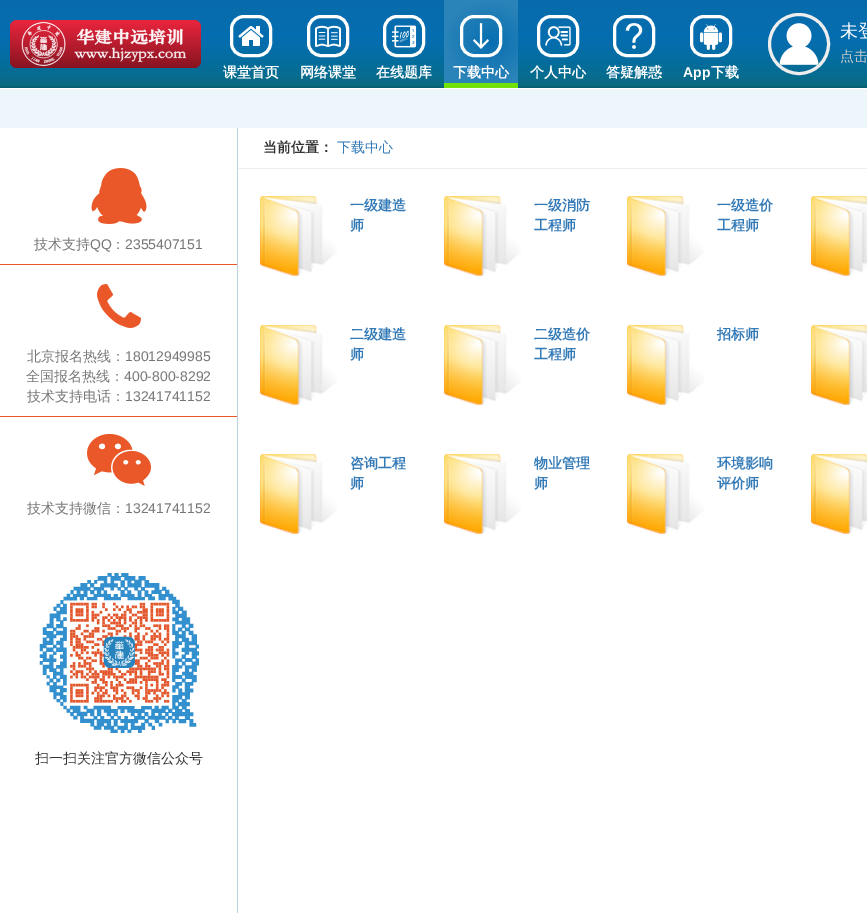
%!PS-Adobe-3.0
%%BoundingBox: 0 0 867 913
%%LanguageLevel: 3
%%Pages: 1
%%EndComments
%%BeginProlog
/m { moveto } bind def
/l { lineto } bind def
/h { closepath } bind def
/S { stroke } bind def
/q { gsave } bind def
/Q { grestore } bind def
/w { setlinewidth } bind def
/fn { [ exch dup neg 0 0 3 -1 roll 0 0 ] selectfont } def
/tx { moveto show } def
/bx { rectfill } def
/ci { newpath 0 360 arc closepath } def
/rr { 5 dict begin { /r /h /w /y /x } { exch def } forall
  x r add y moveto x w add y 2 copy h add r arct x w add y h add x 1 index r arct
  x y h add x y r arct x y 2 copy exch w add exch r arct closepath end } def
/im { 5 dict begin { /h /w /y /x /name } { exch def } forall
  gsave x y translate w h scale
  w h 8 [w 0 0 h 0 0] name (r) file false 3 colorimage grestore end } def
%%EndProlog
%%BeginSetup
<< /PageSize [867 913] >> setpagedevice
%%EndSetup
%%Page: 1 1
0 913 translate 1 -1 scale
4 setmiterlimit
1 setgray
0 0 867 913 bx
(image0.raw) 0 0 867 88 im
(image1.raw) 10 20 191 48 im
0.933 setgray
3 w
799 44 29.5 ci S
(image2.raw) 779 23 40 42 im
/WenQuanYiZenHei-Medium 18 fn
1 setgray
(未登) 840 37 tx
/WenQuanYiZenHei-Medium 14 fn
0.8 setgray
(点击) 840 61 tx
1 setgray
231.5 16.5 39 39 12.5 rr S
(image3.raw) 238 26 26 20 im
/WenQuanYiZenHei-Bold 14 fn
(课堂首页) 223 77 tx
308.5 16.5 39 39 12.5 rr S
(image4.raw) 315 25 26 22 im
(网络课堂) 300 77 tx
384.5 16.5 39 39 12.5 rr S
(image5.raw) 391 25 26 23 im
(在线题库) 376 77 tx
q 444 0 m 518 0 l 518 83 l 444 83 l h clip newpath 490 42 translate 46 42 scale
<< /ShadingType 3 /ColorSpace /DeviceRGB /Coords [0 0 0 0 0 1] /Extend [true true] /Function << /FunctionType 2 /Domain [0 1] /C0 [0.024 0.431 0.69] /C1 [0.169 0.518 0.725] /N 1 >> >> shfill Q
0.451 0.882 0.031 setrgbcolor
444 83 74 5 bx
1 setgray
461.5 16.5 39 39 12.5 rr S
(image6.raw) 473 23 16 26 im
(下载中心) 453 77 tx
538.5 16.5 39 39 12.5 rr S
(image7.raw) 545 26 26 20 im
(个人中心) 530 77 tx
614.5 16.5 39 39 12.5 rr S
(image8.raw) 625 23 18 26 im
(答疑解惑) 606 77 tx
691.5 16.5 39 39 12.5 rr S
(image9.raw) 700 24 22 26 im
/LiberationSans-Bold 14 fn
(App) 683 77 tx
/WenQuanYiZenHei-Bold 14 fn
(下载) 711 77 tx
0.929 0.965 0.98 setrgbcolor
0 89 867 39 bx
0.718 0.835 0.875 setrgbcolor
237 128 1 785 bx
0.918 0.345 0.161 setrgbcolor
0 264 237 1 bx
(image10.raw) 91 168 56 56 im
/WenQuanYiZenHei-Medium 14 fn
0.467 setgray
(技术支持) 34 249 tx
/LiberationSans-Regular 14 fn
(QQ) 90 249 tx
/WenQuanYiZenHei-Medium 14 fn
(：) 111 249 tx
/LiberationSans-Regular 14 fn
(2355407151) 125 249 tx
0.918 0.345 0.161 setrgbcolor
0 416 237 1 bx
(image11.raw) 97 284 44 44 im
/WenQuanYiZenHei-Medium 14 fn
0.467 setgray
(北京报名热线：) 27 361 tx
/LiberationSans-Regular 14 fn
(18012949985) 125 361 tx
/WenQuanYiZenHei-Medium 14 fn
(全国报名热线：) 26 381 tx
/LiberationSans-Regular 14 fn
(400-800-8292) 124 381 tx
/WenQuanYiZenHei-Medium 14 fn
(技术支持电话：) 27 401 tx
/LiberationSans-Regular 14 fn
(13241741152) 125 401 tx
(image12.raw) 87 433 64 53 im
/WenQuanYiZenHei-Medium 14 fn
(技术支持微信：) 27 513 tx
/LiberationSans-Regular 14 fn
(13241741152) 125 513 tx
(image13.raw) 39 573 160 160 im
/WenQuanYiZenHei-Medium 14 fn
0.2 setgray
(扫一扫关注官方微信公众号) 35 763 tx
/WenQuanYiZenHei-Bold 14 fn
(当前位置：) 263 152 tx
/WenQuanYiZenHei-Medium 14 fn
0.2 0.478 0.718 setrgbcolor
(下载中心) 337 152 tx
0.933 setgray
238 168 629 1 bx
(image14.raw) 260 196 77 80 im
/WenQuanYiZenHei-Bold 14 fn
0.2 0.478 0.718 setrgbcolor
(一级建造) 350 210 tx
(师) 350 230 tx
(image14.raw) 444 196 77 80 im
(一级消防) 534 210 tx
(工程师) 534 230 tx
(image14.raw) 627 196 77 80 im
(一级造价) 717 210 tx
(工程师) 717 230 tx
(image15.raw) 811 196 56 80 im
(image14.raw) 260 325 77 80 im
(二级建造) 350 339 tx
(师) 350 359 tx
(image14.raw) 444 325 77 80 im
(二级造价) 534 339 tx
(工程师) 534 359 tx
(image14.raw) 627 325 77 80 im
(招标师) 717 339 tx
(image15.raw) 811 325 56 80 im
(image14.raw) 260 454 77 80 im
(咨询工程) 350 468 tx
(师) 350 488 tx
(image14.raw) 444 454 77 80 im
q
534 454 69 40 rectclip
(物业管理) 534 468 tx
Q
(师) 534 488 tx
(image14.raw) 627 454 77 80 im
(环境影响) 717 468 tx
(评价师) 717 488 tx
(image15.raw) 811 454 56 80 im
showpage
%%EOF
